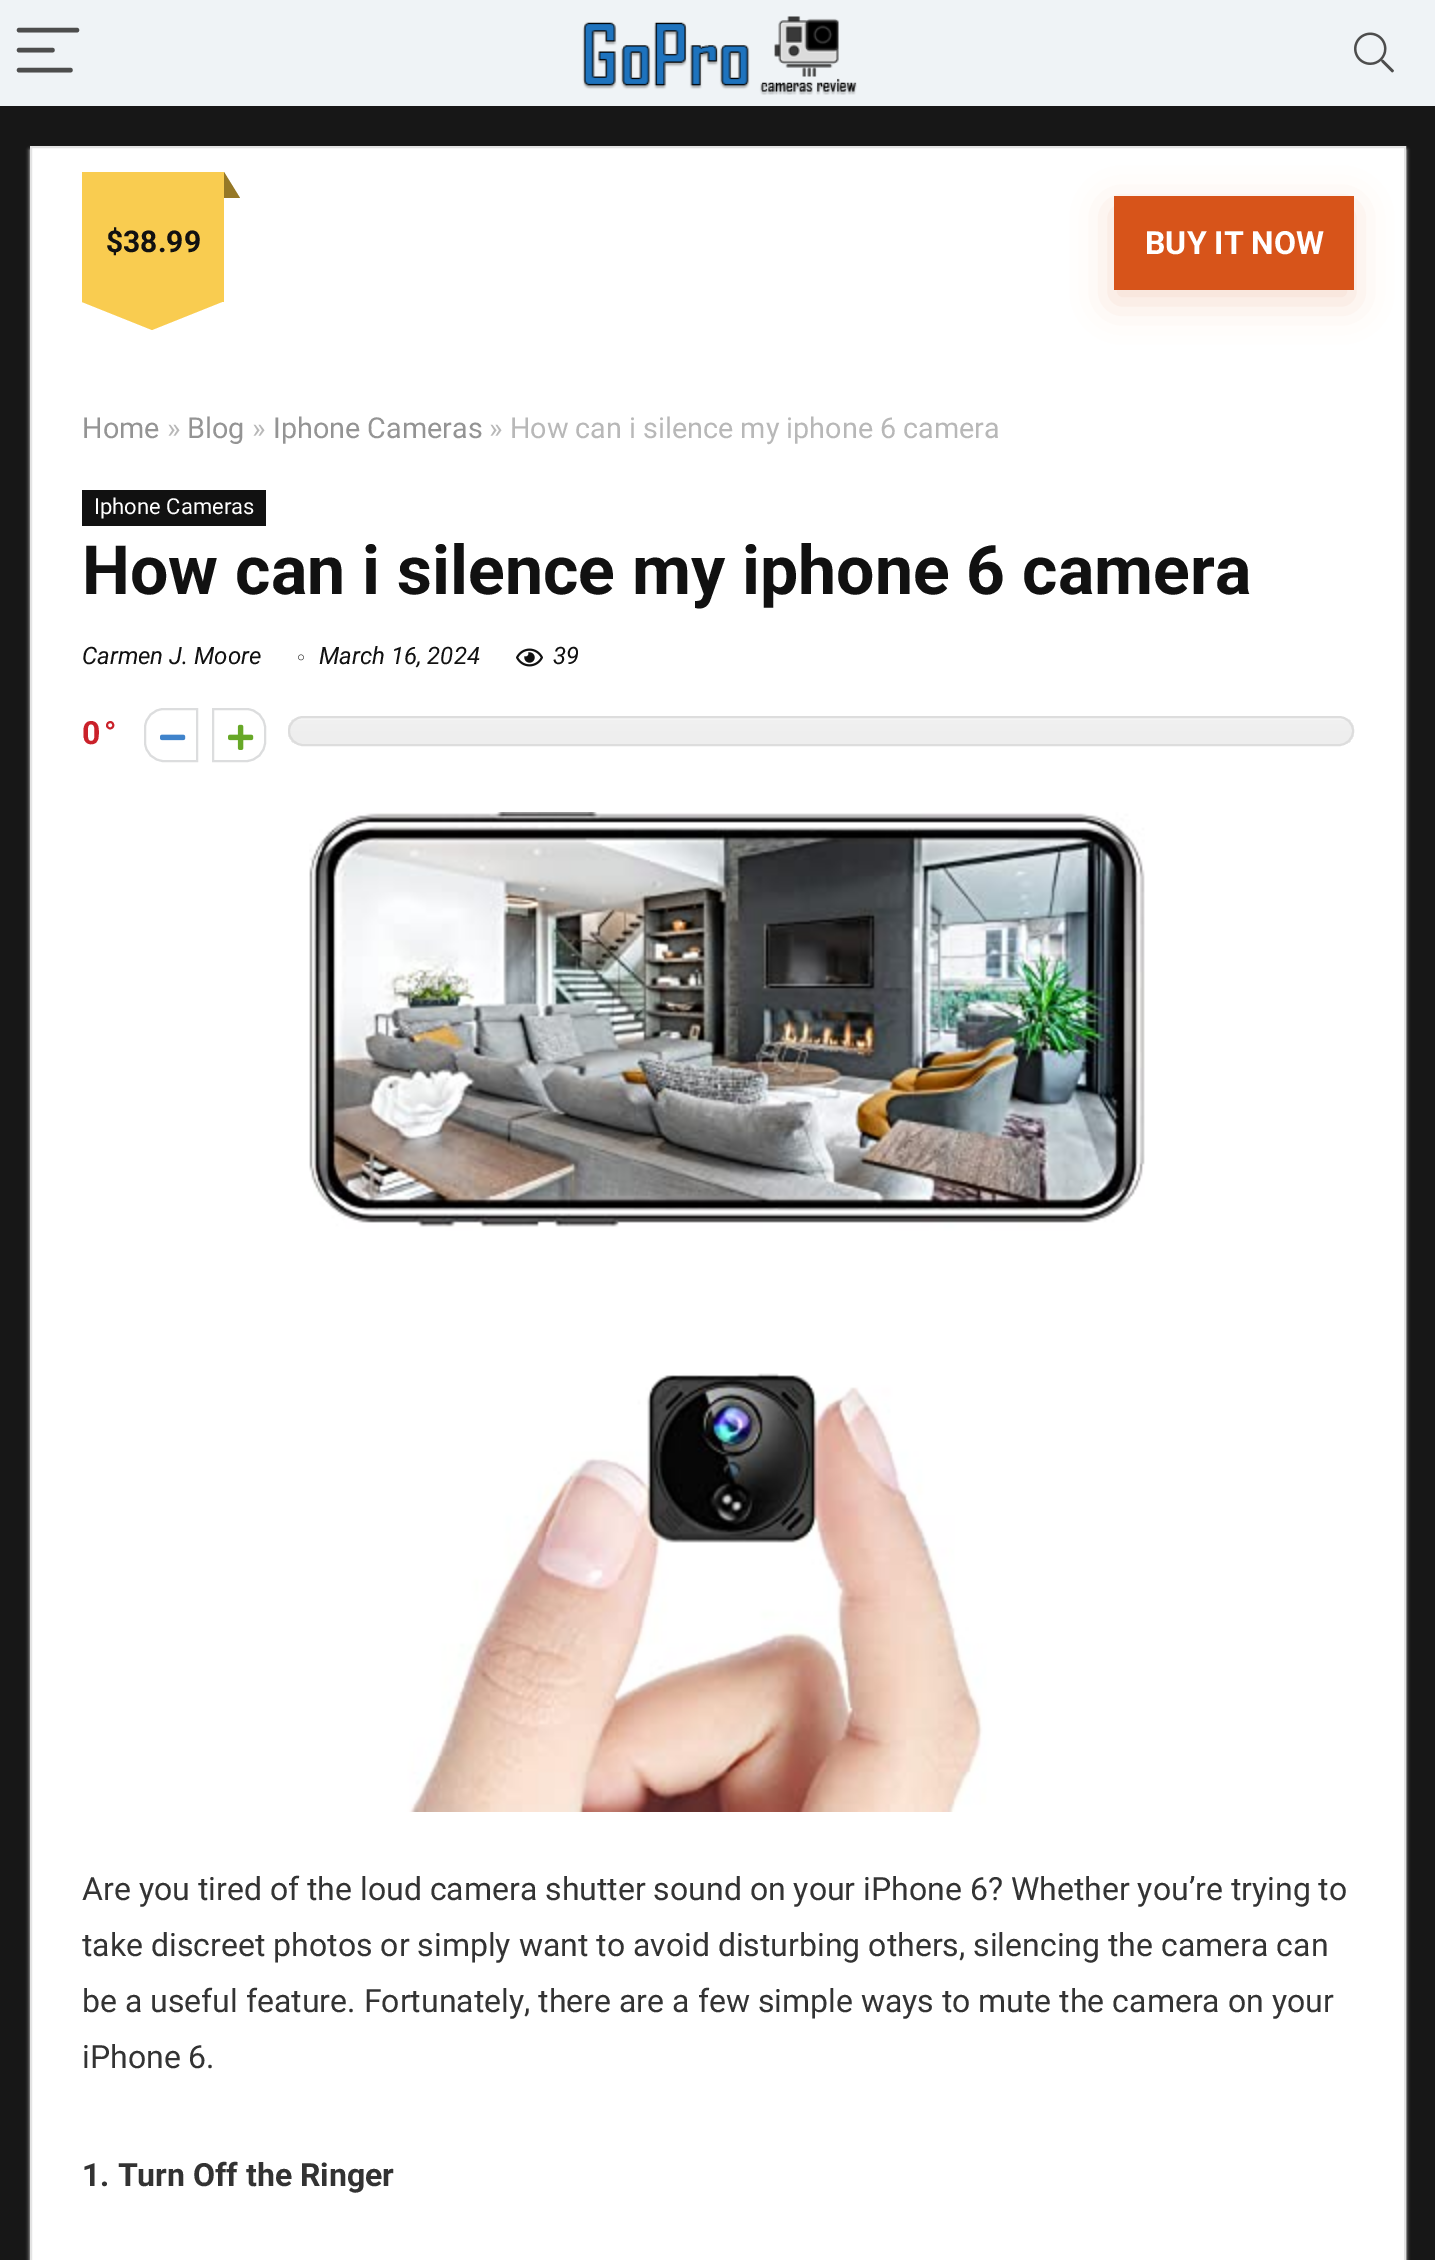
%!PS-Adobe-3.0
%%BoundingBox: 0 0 1435 2260
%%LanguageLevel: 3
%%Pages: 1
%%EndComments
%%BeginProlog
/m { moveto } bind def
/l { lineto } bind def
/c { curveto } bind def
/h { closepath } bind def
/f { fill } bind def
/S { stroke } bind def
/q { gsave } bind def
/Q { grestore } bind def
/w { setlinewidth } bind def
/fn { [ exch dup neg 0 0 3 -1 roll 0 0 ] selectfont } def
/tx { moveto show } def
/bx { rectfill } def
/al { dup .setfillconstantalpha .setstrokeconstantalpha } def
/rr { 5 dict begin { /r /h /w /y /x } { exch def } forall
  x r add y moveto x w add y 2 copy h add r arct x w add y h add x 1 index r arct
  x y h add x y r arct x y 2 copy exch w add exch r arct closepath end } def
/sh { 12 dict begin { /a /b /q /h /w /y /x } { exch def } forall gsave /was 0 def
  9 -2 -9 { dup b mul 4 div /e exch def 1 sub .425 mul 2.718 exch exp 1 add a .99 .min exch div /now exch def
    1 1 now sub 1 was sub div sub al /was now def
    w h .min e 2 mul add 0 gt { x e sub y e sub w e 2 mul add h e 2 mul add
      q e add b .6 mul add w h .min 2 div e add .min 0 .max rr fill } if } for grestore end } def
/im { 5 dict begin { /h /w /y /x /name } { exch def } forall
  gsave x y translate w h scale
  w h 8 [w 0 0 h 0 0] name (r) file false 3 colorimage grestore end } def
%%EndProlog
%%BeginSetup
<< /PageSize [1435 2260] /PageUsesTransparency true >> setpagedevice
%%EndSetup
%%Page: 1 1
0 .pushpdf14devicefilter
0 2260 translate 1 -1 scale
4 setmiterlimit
0.09 setgray
0 0 1435 2260 bx
0.937 0.953 0.965 setrgbcolor
0 0 1435 106 bx
0.302 setgray
4.5 w
1 setlinecap
19 30 m 77 30 l S
19 50 m 52.5 50 l 19 70 m 70.5 70 l S
(image0.raw) 582 16 275 79 im
(image1.raw) 1354 32 40 41 im
0.925 setgray
30 150 1376 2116 0 2 1 sh
1 setgray
31 147 m 1405 147 l 1405 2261 l 31 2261 l h q f Q
0.89 setgray
2 w
0 setlinecap
S
0.976 0.8 0.314 setrgbcolor
82 172 142 130 bx
0.588 0.471 0.149 setrgbcolor
224 198 m 224 172 l 240 198 l h f
/Roboto-Bold 30 fn
0.067 setgray
($38.99) 106 252 tx
0.976 0.8 0.314 setrgbcolor
82 302 m 222 302 l 152 330 l h f
0.843 0.329 0.102 setrgbcolor
1112 208 240 94 0 19 0.2 sh
1114 196 240 94 bx
/Roboto-Bold 32 fn
1 setgray
(BUY IT NOW) 1145 254 tx
/Roboto-Regular 28.75 fn
0.58 setgray
(Home) 82 438 tx
0.722 setgray
(») 167 438 tx
0.58 setgray
(Blog) 187 438 tx
0.722 setgray
(») 252 438 tx
0.58 setgray
(Iphone Cameras) 273 438 tx
0.722 setgray
(» How can i silence my iphone 6 camera) 489 438 tx
0.067 setgray
82 490 184 36 bx
/Roboto-Regular 22 fn
1 setgray
(Iphone Cameras) 94 514 tx
/Roboto-Bold 68 fn
0.067 setgray
(How can i silence my iphone 6 camera) 82 594 tx
/Roboto-Italic 24 fn
(Carmen J. Moore) 82 664 tx
(image2.raw) 298 654 6 7 im
(March 16, 2024) 319 664 tx
(image3.raw) 516 648 27 19 im
(39) 553 664 tx
/Roboto-Bold 32 fn
0.792 0.129 0.165 setrgbcolor
(0) 82 744 tx
(°) 104 744 tx
0.863 0.867 0.871 setrgbcolor
164 709 m 197 709 l 197 761 l 164 761 l 153.5 761 145 752.5 145 742 c 145 728 l 145 717.5 153.5 709 164 709 c h S
(image4.raw) 160 734 26 7 im
213 709 m 246 709 l 256.5 709 265 717.5 265 728 c 265 742 l 265 752.5 256.5 761 246 761 c 213 761 l h S
(image5.raw) 228 724 26 26 im
q
288 716 1066 30 15 rr clip newpath
q 288 718 m 1354 718 l 1354 744 l 288 744 l h clip newpath
<< /ShadingType 2 /ColorSpace /DeviceRGB /Coords [821 718 821 744] /Extend [true true] /Function << /FunctionType 3 /Domain [0 1] /Functions [<< /FunctionType 2 /Domain [0 1] /C0 [0.961 0.961 0.961] /C1 [0.961 0.961 0.961] /N 1 >> << /FunctionType 2 /Domain [0 1] /C0 [0.941 0.941 0.941] /C1 [0.933 0.933 0.933] /N 1 >>] /Bounds [0.08] /Encode [0 1 0 1] >> >> shfill Q
Q
0.867 setgray
289 717 1064 28 14 rr S
(image6.raw) 309 812 836 1000 im
/Roboto-Regular 32 fn
0.2 setgray
(Are you tired of the loud camera shutter sound on your iPhone 6? Whether you’re trying to) 82 1900 tx
(take discreet photos or simply want to avoid disturbing others, silencing the camera can) 82 1956 tx
(be a useful feature. Fortunately, there are a few simple ways to mute the camera on your) 82 2012 tx
(iPhone 6.) 82 2068 tx
/Roboto-Bold 32 fn
(1. Turn Off the Ringer) 82 2186 tx
.poppdf14devicefilter showpage
%%EOF
